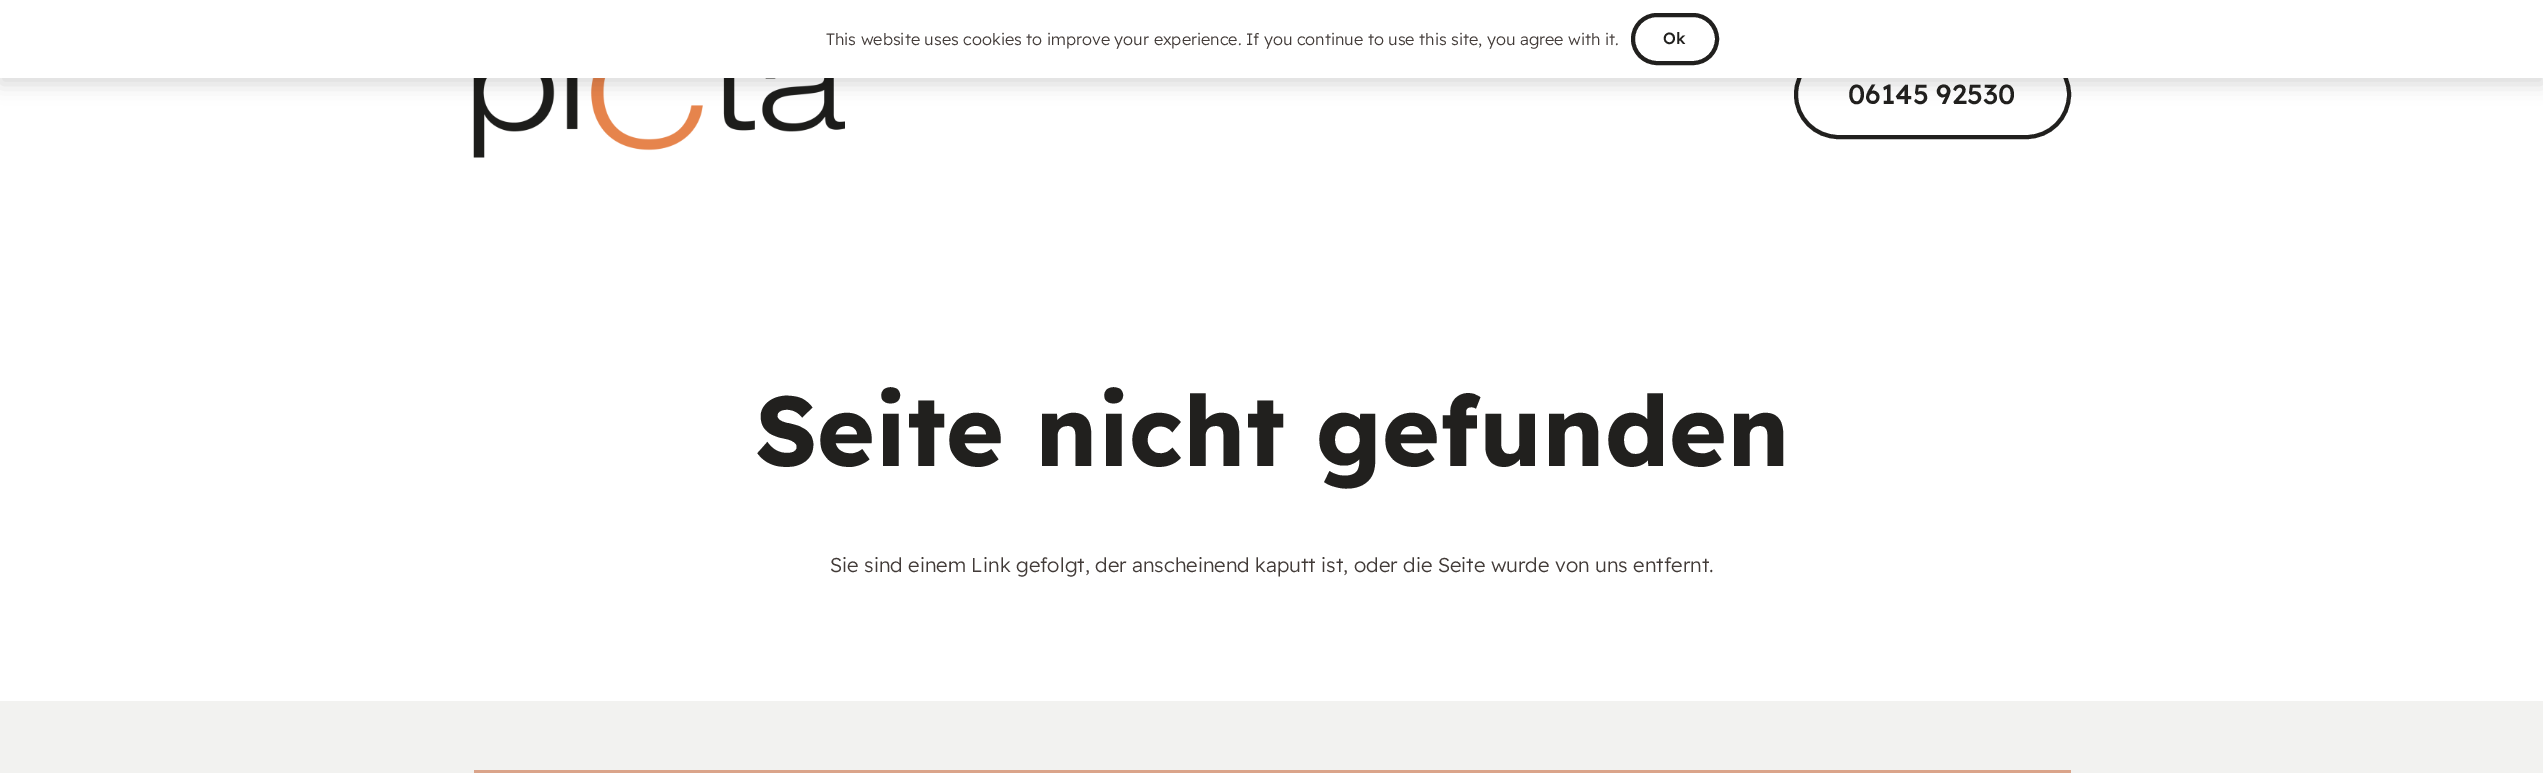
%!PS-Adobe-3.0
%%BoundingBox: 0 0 2543 773
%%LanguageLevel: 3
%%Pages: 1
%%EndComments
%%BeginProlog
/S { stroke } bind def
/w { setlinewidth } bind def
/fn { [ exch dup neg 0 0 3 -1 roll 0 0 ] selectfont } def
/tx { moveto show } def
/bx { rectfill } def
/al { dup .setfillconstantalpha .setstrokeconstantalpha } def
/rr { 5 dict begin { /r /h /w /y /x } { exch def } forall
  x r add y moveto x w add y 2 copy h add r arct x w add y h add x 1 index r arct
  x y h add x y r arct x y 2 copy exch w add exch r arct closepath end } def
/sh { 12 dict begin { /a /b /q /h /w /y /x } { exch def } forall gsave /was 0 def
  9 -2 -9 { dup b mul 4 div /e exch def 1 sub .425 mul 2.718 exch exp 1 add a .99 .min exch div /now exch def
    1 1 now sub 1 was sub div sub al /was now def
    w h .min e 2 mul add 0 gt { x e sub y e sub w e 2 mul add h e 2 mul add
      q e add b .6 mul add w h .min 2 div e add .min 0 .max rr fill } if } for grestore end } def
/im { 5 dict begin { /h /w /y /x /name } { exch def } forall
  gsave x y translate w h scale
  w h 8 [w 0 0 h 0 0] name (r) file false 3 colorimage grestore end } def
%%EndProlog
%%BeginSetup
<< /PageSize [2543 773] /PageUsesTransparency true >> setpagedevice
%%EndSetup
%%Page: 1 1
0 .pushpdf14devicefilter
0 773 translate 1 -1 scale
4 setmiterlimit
1 setgray
0 0 2543 773 bx
(image0.raw) 473 78 372 80 im
0.129 0.125 0.118 setrgbcolor
4 w
1796 52 273 85 42.5 rr S
0 setgray
0 6 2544 78 0 9.5 0.15 sh
1 setgray
0 0 2543 78 bx
/ReadexPro-Light 16.25 fn
0.259 0.231 0.22 setrgbcolor
(This website uses cookies to improve your experience. If you continue to use this site, you agree with it.) 826 45 tx
0.129 0.125 0.118 setrgbcolor
1633 15 84 48 24 rr S
/ReadexPro-Medium 16.25 fn
(Ok) 1663 44 tx
/ReadexPro-Medium 27.5 fn
(06145 92530) 1848 104 tx
/ReadexPro-Bold 98.4 fn
(Seite nicht gefunden) 755 466 tx
/ReadexPro-Light 20 fn
0.259 0.231 0.22 setrgbcolor
(Sie sind einem Link gefolgt, der anscheinend kaputt ist, oder die Seite wurde von uns entfernt.) 830 572 tx
0.949 0.949 0.941 setrgbcolor
0 701 2543 72 bx
0.855 0.643 0.541 setrgbcolor
474 770 1597 3 bx
.poppdf14devicefilter showpage
%%EOF
